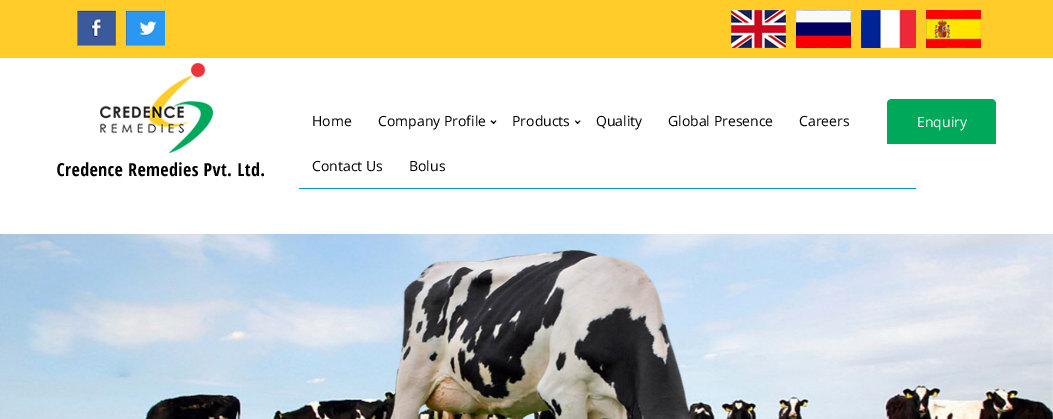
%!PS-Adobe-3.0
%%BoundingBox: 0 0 1053 419
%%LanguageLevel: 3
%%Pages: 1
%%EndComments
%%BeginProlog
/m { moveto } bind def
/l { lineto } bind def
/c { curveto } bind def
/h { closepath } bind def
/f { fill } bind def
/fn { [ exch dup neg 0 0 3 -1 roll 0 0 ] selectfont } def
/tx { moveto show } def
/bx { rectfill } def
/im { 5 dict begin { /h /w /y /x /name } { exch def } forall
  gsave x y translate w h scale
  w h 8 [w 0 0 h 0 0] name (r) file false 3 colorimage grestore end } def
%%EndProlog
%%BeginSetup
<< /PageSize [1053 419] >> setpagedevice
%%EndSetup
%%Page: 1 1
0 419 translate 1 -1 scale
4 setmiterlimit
1 setgray
0 0 1053 419 bx
1 0.8 0.161 setrgbcolor
0 0 1053 58 bx
(image0.raw) 77 10 39 36 im
(image1.raw) 126 10 39 36 im
(image2.raw) 731 10 55 38 im
(image3.raw) 796 10 55 38 im
(image4.raw) 861 10 55 38 im
(image5.raw) 926 10 55 38 im
(image6.raw) 57 63 207 114 im
0 0.573 0.82 setrgbcolor
299 188 617 1 bx
/OpenSans-Regular 14 fn
0 setgray
(Home) 312 126 tx
(Company Profile) 378 126 tx
495.5 120.5 m 496.5 121 l 493.5 124 l 493 123 l h f
491.5 120.5 m 494.5 123 l 493.5 124 l 490.5 121 l h f
(Products) 512 126 tx
580 120.5 m 580.5 121 l 577.5 124 l 577 123 l h f
575.5 120.5 m 578.5 123 l 577.5 124 l 575 121 l h f
(Quality) 596 126 tx
(Global Presence) 668 126 tx
(Careers) 799 126 tx
(Contact Us) 312 171 tx
(Bolus) 409 171 tx
0 0.659 0.349 setrgbcolor
892 99 m 991 99 l 994 99 996 101 996 104 c 996 144 l 887 144 l 887 104 l 887 101 889 99 892 99 c h f
1 setgray
(Enquiry) 917 127 tx
(image7.raw) 0 234 1053 185 im
showpage
%%EOF
